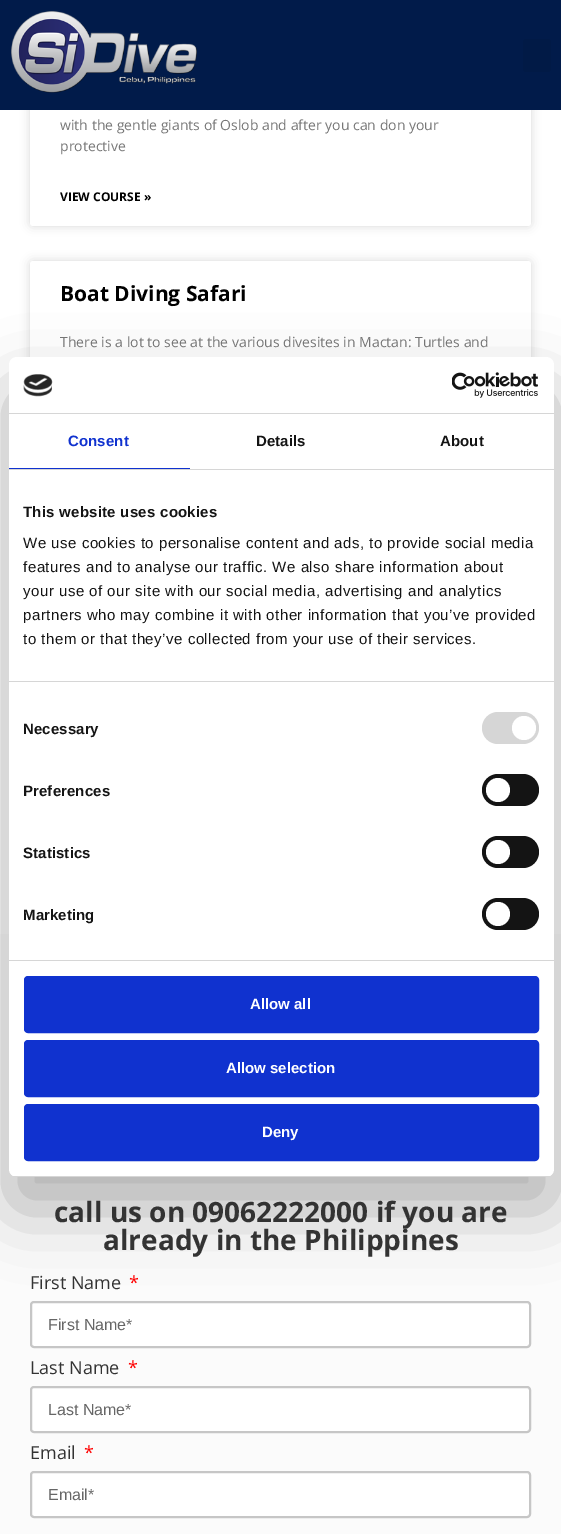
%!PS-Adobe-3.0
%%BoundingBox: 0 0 561 1534
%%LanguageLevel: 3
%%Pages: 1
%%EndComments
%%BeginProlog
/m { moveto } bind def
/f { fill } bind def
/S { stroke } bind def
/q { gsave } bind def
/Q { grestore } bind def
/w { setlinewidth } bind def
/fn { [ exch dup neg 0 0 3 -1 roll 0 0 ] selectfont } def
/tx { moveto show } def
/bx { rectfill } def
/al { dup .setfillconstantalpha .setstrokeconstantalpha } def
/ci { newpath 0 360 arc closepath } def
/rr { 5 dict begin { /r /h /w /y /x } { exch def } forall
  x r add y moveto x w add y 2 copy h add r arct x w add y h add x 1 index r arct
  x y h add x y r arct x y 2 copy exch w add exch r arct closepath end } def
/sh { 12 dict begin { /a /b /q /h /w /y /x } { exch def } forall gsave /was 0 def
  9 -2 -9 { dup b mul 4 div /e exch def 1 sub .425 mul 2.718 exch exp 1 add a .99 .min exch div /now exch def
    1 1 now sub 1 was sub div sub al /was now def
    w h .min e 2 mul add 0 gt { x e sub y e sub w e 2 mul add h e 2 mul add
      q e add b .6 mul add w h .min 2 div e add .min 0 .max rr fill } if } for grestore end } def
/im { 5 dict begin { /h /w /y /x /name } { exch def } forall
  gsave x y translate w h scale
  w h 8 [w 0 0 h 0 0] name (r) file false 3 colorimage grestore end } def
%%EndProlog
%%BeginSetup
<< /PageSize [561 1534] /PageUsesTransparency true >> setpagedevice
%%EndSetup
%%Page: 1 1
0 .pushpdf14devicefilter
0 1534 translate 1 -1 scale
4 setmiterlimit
1 setgray
0 0 561 1534 bx
0 setgray
30 23 501 203 3 5 0.15 sh
1 setgray
30 23 501 203 3 rr f
0.004 0.106 0.29 setrgbcolor
0 0 561 110 bx
(image0.raw) 11 11 186 82 im
0.004 0.102 0.275 setrgbcolor
523 39 28 33 3 rr f
/OpenSans-Regular 14 fn
0.467 setgray
(with the gentle giants of Oslob and after you can don your) 60 130 tx
(protective) 60 151 tx
/OpenSans-Bold 12 fn
0 setgray
(VIEW COURSE ») 60 201 tx
30 261 501 182 3 5 0.15 sh
1 setgray
30 261 501 182 3 rr f
/OpenSans-Bold 21 fn
0 setgray
(Boat Diving Safari) 60 301 tx
/OpenSans-Regular 14 fn
0.467 setgray
(There is a lot to see at the various divesites in Mactan: Turtles and) 60 347 tx
0.984 setgray
0 934 561 600 bx
1 setgray
31 1302 499 45 3 rr q f Q
0.776 setgray
2 w
S
0 setgray
9 389 545 820 8 34 0.3 sh
1 setgray
9 357 545 820 8 rr f
0.839 setgray
9 413 545 1 bx
(image1.raw) 23 374 30 23 im
(image2.raw) 452 372 86 26 im
9 469 545 1 bx
0.063 0.196 0.812 setrgbcolor
9 468 181 1 bx
/LiberationSans-Bold 15 fn
68 446 m 0.1 0 (Consent) ashow
0.078 setgray
256 446 m 0.1 0 (Details) ashow
440 446 m 0.1 0 (About) ashow
0.839 setgray
9 681 545 1 bx
0.078 setgray
23 517 m 0.25 0 (This website uses cookies) ashow
/LiberationSans-Regular 15 fn
23 548 m 0.5 0 (We use cookies to personalise content and ads, to provide social media) ashow
23 572 m 0.5 0 (features and to analyse our traffic. We also share information about) ashow
23 596 m 0.5 0 (your use of our site with our social media, advertising and analytics) ashow
23 620 m 0.5 0 (partners who may combine it with other information that you’ve provided) ashow
23 644 m 0.5 0 (to them or that they’ve collected from your use of their services.) ashow
0.839 setgray
9 960 545 1 bx
/LiberationSans-Bold 15 fn
0.078 setgray
23 734 m 0.1 0 (Necessary) ashow
0.839 setgray
482 712 57 32 16 rr f
1 setgray
524 728 12 ci f
0.078 setgray
23 796 m 0.1 0 (Preferences) ashow
482 774 57 32 16 rr f
1 setgray
498 790 12 ci f
0.078 setgray
23 858 m 0.1 0 (Statistics) ashow
482 836 57 32 16 rr f
1 setgray
498 852 12 ci f
0.078 setgray
23 920 m 0.1 0 (Marketing) ashow
482 898 57 32 16 rr f
1 setgray
498 914 12 ci f
q
9 357 545 820 8 rr clip newpath
0.839 setgray
9 1176 545 1 bx
Q
0.063 0.196 0.812 setrgbcolor
25 977 513 55 3 rr q f Q
S
1 setgray
(Allow all) 250 1009 tx
0.063 0.196 0.812 setrgbcolor
25 1041 513 55 3 rr q f Q
S
1 setgray
(Allow selection) 226 1073 tx
0.063 0.196 0.812 setrgbcolor
25 1105 513 55 3 rr q f Q
S
1 setgray
(Deny) 262 1137 tx
/OpenSans-Bold 28 fn
0.2 setgray
(call us on 09062222000 if you are) 54 1222 tx
(already in the Philippines) 103 1250 tx
/OpenSans-Regular 18 fn
(First Name) 30 1289 tx
1 0 0 setrgbcolor
(*) 129 1289 tx
/LiberationSans-Regular 16 fn
0.4 setgray
(First Name*) 48 1330 tx
/OpenSans-Regular 18 fn
0.2 setgray
(Last Name) 30 1374 tx
1 0 0 setrgbcolor
(*) 128 1374 tx
1 setgray
31 1387 499 45 3 rr q f Q
0.776 setgray
S
/LiberationSans-Regular 16 fn
0.4 setgray
(Last Name*) 48 1415 tx
/OpenSans-Regular 18 fn
0.2 setgray
(Email) 30 1459 tx
1 0 0 setrgbcolor
(*) 84 1459 tx
1 setgray
31 1472 499 45 3 rr q f Q
0.776 setgray
S
/LiberationSans-Regular 16 fn
0.4 setgray
(Email*) 48 1500 tx
.poppdf14devicefilter showpage
%%EOF
